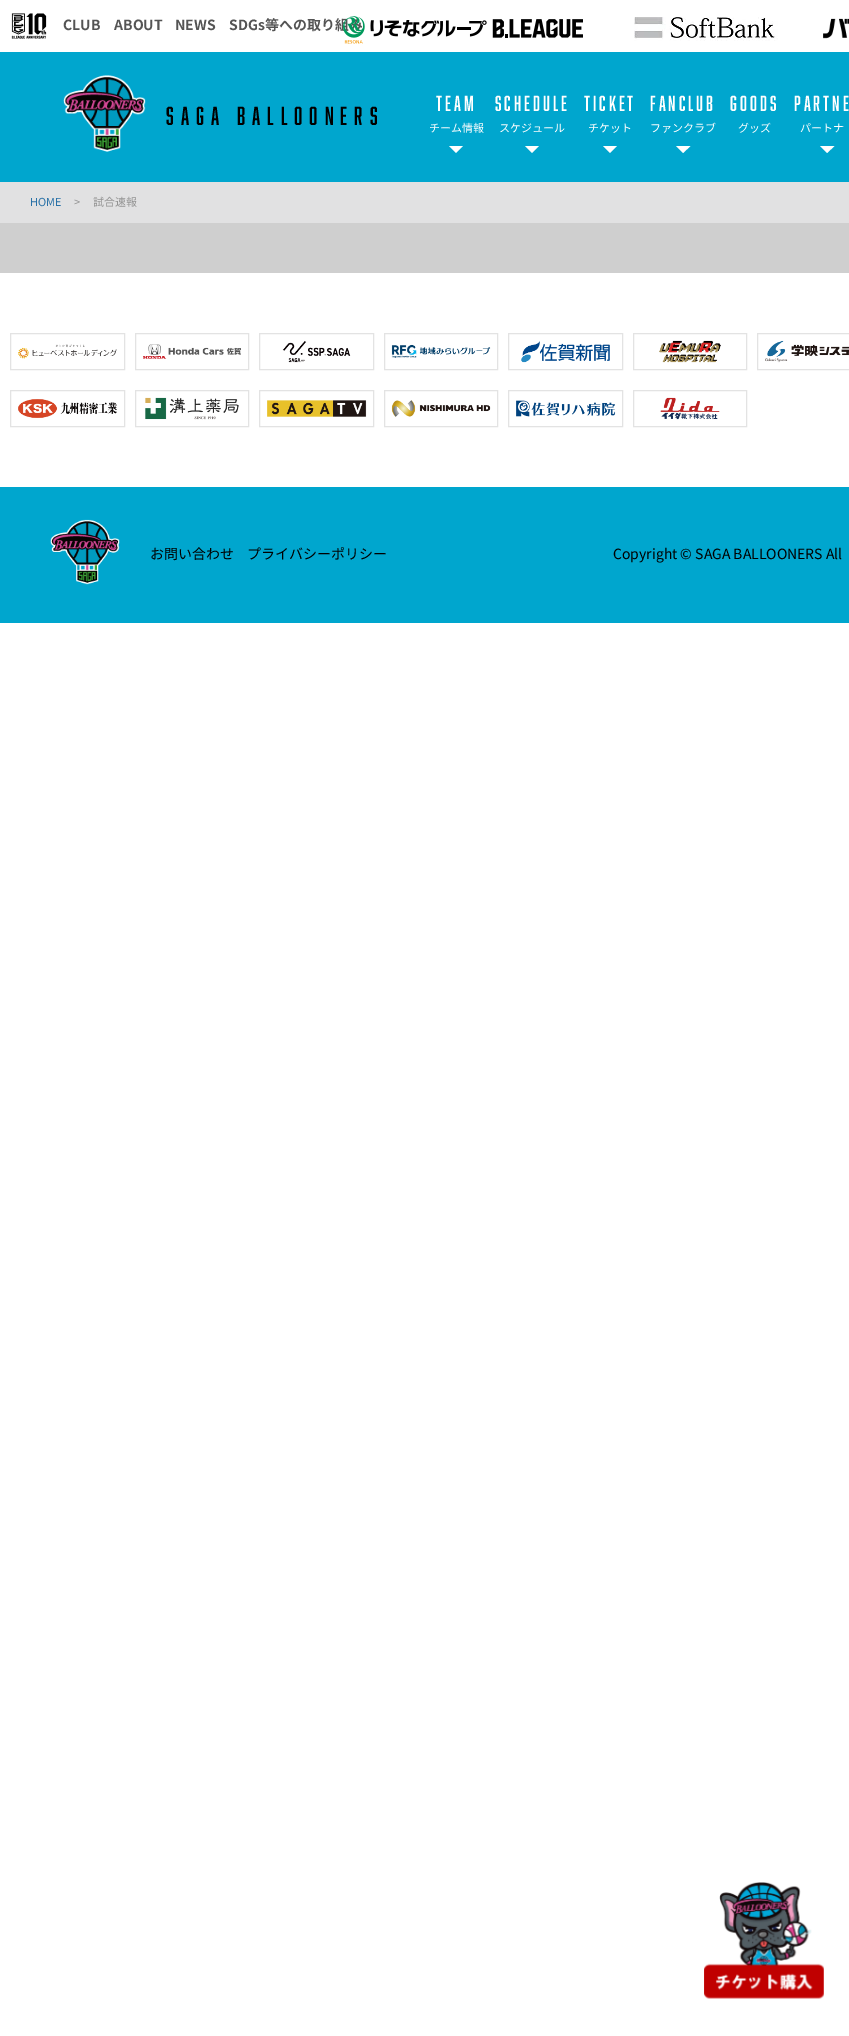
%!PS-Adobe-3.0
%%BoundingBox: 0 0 849 2036
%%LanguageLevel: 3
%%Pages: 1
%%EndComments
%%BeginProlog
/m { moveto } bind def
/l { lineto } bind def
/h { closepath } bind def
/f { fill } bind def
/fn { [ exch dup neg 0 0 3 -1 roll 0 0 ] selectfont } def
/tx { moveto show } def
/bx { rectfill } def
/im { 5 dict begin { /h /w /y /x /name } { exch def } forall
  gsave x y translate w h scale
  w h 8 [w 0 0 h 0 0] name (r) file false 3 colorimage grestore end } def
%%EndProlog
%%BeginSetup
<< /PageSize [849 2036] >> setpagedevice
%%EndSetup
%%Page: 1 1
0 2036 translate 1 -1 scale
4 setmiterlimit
1 setgray
0 0 849 2036 bx
(image0.raw) 11 13 36 26 im
/NotoSansCJKJP-Bold 14 fn
0.329 setgray
(CLUB) 63 30 tx
(ABOUT) 114 30 tx
(NEWS) 175 30 tx
(SDGs等への取り組み) 229 30 tx
(image1.raw) 343 16 240 28 im
(image2.raw) 634 17 144 24 im
(image3.raw) 823 18 26 21 im
0 0.651 0.808 setrgbcolor
0 52 849 130 bx
(image4.raw) 63 75 83 77 im
/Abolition-Regular 24 fn
0 setgray
166 125 m 7 0 (SAGA BALLOONERS) ashow
/Abolition-Regular 20 fn
1 setgray
436 111 m 3 0 (TEAM) ashow
/NotoSansCJKJP-Regular 11 fn
(チーム情報) 429 132 tx
456 139 m 463 146 l 456 153 l 449 146 l h f
0 0.651 0.808 setrgbcolor
449 139 14 7 bx
/Abolition-Regular 20 fn
1 setgray
495 111 m 3 0 (SCHEDULE) ashow
/NotoSansCJKJP-Regular 11 fn
(スケジュール) 499 132 tx
532 139 m 539 146 l 532 153 l 525 146 l h f
0 0.651 0.808 setrgbcolor
525 139 14 7 bx
/Abolition-Regular 20 fn
1 setgray
584 111 m 3 0 (TICKET) ashow
/NotoSansCJKJP-Regular 11 fn
(チケット) 588 132 tx
610 139 m 617 146 l 610 153 l 603 146 l h f
0 0.651 0.808 setrgbcolor
603 139 14 7 bx
/Abolition-Regular 20 fn
1 setgray
650 111 m 3 0 (FANCLUB) ashow
/NotoSansCJKJP-Regular 11 fn
(ファンクラブ) 650 132 tx
683 139 m 690.5 146 l 683 153 l 676 146 l h f
0 0.651 0.808 setrgbcolor
676 139 15 7 bx
/Abolition-Regular 20 fn
1 setgray
730 111 m 3 0 (GOODS) ashow
/NotoSansCJKJP-Regular 11 fn
(グッズ) 738 132 tx
/Abolition-Regular 20 fn
794 111 m 3 0 (PARTNE) ashow
/NotoSansCJKJP-Regular 11 fn
(パートナ) 800 132 tx
827 139 m 834.5 146 l 827 153 l 820 146 l h f
0 0.651 0.808 setrgbcolor
820 139 15 7 bx
0.882 0.882 0.886 setrgbcolor
0 182 849 41 bx
0.161 0.443 0.655 setrgbcolor
(HOME) 30 206 tx
0.576 setgray
(>) 74 206 tx
(試合速報) 93 206 tx
0.812 setgray
0 223 849 50 bx
0.89 setgray
10.5 333.5 114 36 rectstroke
(image5.raw) 18 344 99 15 im
135.5 333.5 113 36 rectstroke
(image6.raw) 143 344 98 15 im
259.5 333.5 114 36 rectstroke
(image7.raw) 282 341 69 22 im
384.5 333.5 113 36 rectstroke
(image8.raw) 391 344 100 14 im
508.5 333.5 114 36 rectstroke
(image9.raw) 521 341 89 22 im
633.5 333.5 113 36 rectstroke
(image10.raw) 659 340 62 23 im
757.5 333.5 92 36 rectstroke
(image11.raw) 765 340 84 23 im
10.5 390.5 114 36 rectstroke
(image12.raw) 18 399 99 19 im
135.5 390.5 113 36 rectstroke
(image13.raw) 145 397 94 23 im
259.5 390.5 114 36 rectstroke
(image14.raw) 267 400 100 17 im
384.5 390.5 113 36 rectstroke
(image15.raw) 391 400 100 17 im
508.5 390.5 114 36 rectstroke
(image16.raw) 516 400 100 17 im
633.5 390.5 113 36 rectstroke
(image17.raw) 660 397 60 23 im
0 0.651 0.808 setrgbcolor
0 487 849 136 bx
(image18.raw) 50 519 70 66 im
/NotoSansCJKJP-Regular 14 fn
0 setgray
(お問い合わせ) 150 559 tx
(プライバシーポリシー) 247 559 tx
(Copyright © SAGA BALLOONERS All) 613 559 tx
(image19.raw) 704 1882 120 117 im
showpage
%%EOF
